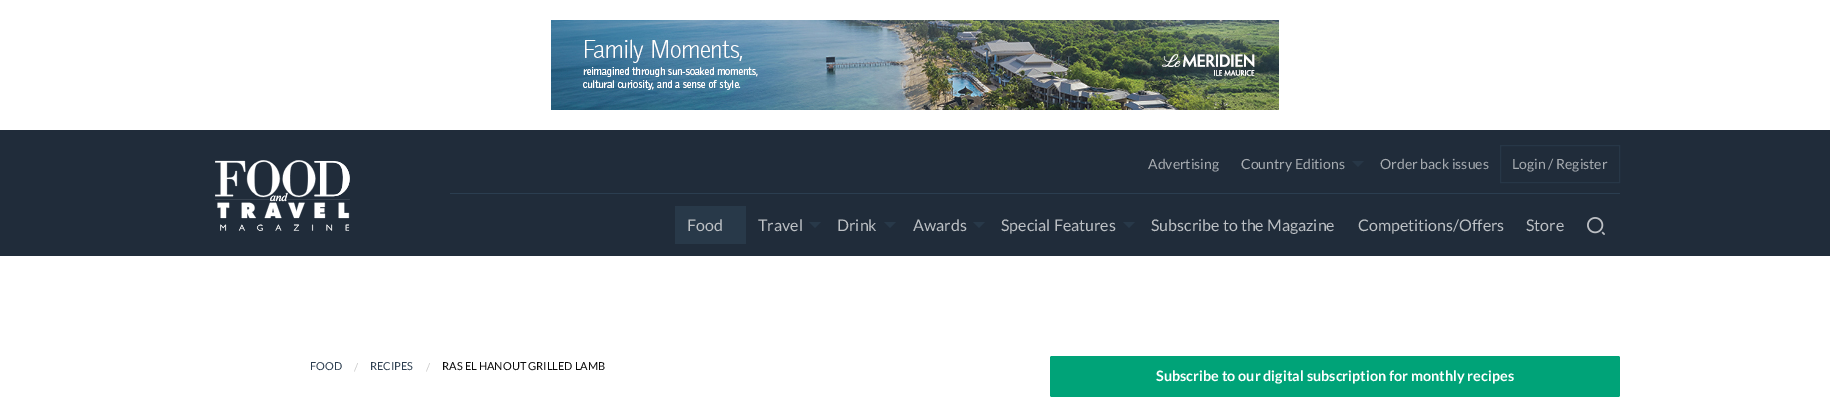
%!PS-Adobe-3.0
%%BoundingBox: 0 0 1830 411
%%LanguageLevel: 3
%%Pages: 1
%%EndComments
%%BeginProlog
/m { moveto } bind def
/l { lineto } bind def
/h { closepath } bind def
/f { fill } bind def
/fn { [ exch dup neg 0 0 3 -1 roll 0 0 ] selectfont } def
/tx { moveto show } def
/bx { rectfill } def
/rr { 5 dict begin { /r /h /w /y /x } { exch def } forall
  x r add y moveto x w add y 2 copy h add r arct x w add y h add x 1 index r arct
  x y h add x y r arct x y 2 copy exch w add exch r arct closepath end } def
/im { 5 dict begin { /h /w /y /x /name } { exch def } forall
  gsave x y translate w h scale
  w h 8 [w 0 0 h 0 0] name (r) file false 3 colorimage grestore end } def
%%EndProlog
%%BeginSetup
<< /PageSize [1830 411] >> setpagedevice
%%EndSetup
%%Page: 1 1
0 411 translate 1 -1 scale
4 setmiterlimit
1 setgray
0 0 1830 411 bx
(image0.raw) 551 20 728 90 im
0.125 0.173 0.227 setrgbcolor
0 130 1830 126 bx
(image1.raw) 215 160 135 71 im
/Lato-Regular 14 fn
0.651 0.671 0.69 setrgbcolor
(Advertising) 1148 169 tx
(Country Editions) 1241 169 tx
0.153 0.216 0.278 setrgbcolor
1352 161 m 1364 161 l 1358 167 l h f
0.651 0.671 0.69 setrgbcolor
(Order back issues) 1380 169 tx
0.153 0.216 0.278 setrgbcolor
1500.5 145.5 119 37 rectstroke
0.651 0.671 0.69 setrgbcolor
(Login / Register) 1512 169 tx
0.169 0.243 0.314 setrgbcolor
450 193 1170 1 bx
0.157 0.224 0.286 setrgbcolor
675 206 71 38 bx
/Lato-Regular 16 fn
0.737 0.753 0.769 setrgbcolor
(Food) 687 231 tx
(Travel) 758 231 tx
0.157 0.224 0.286 setrgbcolor
809 222 m 821 222 l 815 228 l h f
0.737 0.753 0.769 setrgbcolor
(Drink) 837 231 tx
0.157 0.224 0.286 setrgbcolor
884 222 m 896 222 l 890 228 l h f
0.737 0.753 0.769 setrgbcolor
(Awards) 913 231 tx
0.157 0.224 0.286 setrgbcolor
973 222 m 985 222 l 979 228 l h f
0.737 0.753 0.769 setrgbcolor
(Special Features) 1001 231 tx
0.157 0.224 0.286 setrgbcolor
1123 222 m 1135 222 l 1129 228 l h f
0.737 0.753 0.769 setrgbcolor
(Subscribe to the Magazine) 1151 231 tx
(Competitions/Offers) 1358 231 tx
(Store) 1526 231 tx
(image2.raw) 1587 217 18 18 im
/Lato-Regular 11 fn
0.173 0.243 0.314 setrgbcolor
(FOOD) 310 370 tx
0.792 setgray
(/) 354 371 tx
0.173 0.243 0.314 setrgbcolor
(RECIPES) 370 370 tx
0.792 setgray
(/) 426 371 tx
0.039 setgray
(RAS EL HANOUT GRILLED LAMB) 442 370 tx
0 0.639 0.471 setrgbcolor
1050 356 570 41 2 rr f
/Lato-Bold 14.4 fn
1 setgray
(Subscribe to our digital subscription for monthly recipes) 1156 381 tx
showpage
%%EOF
